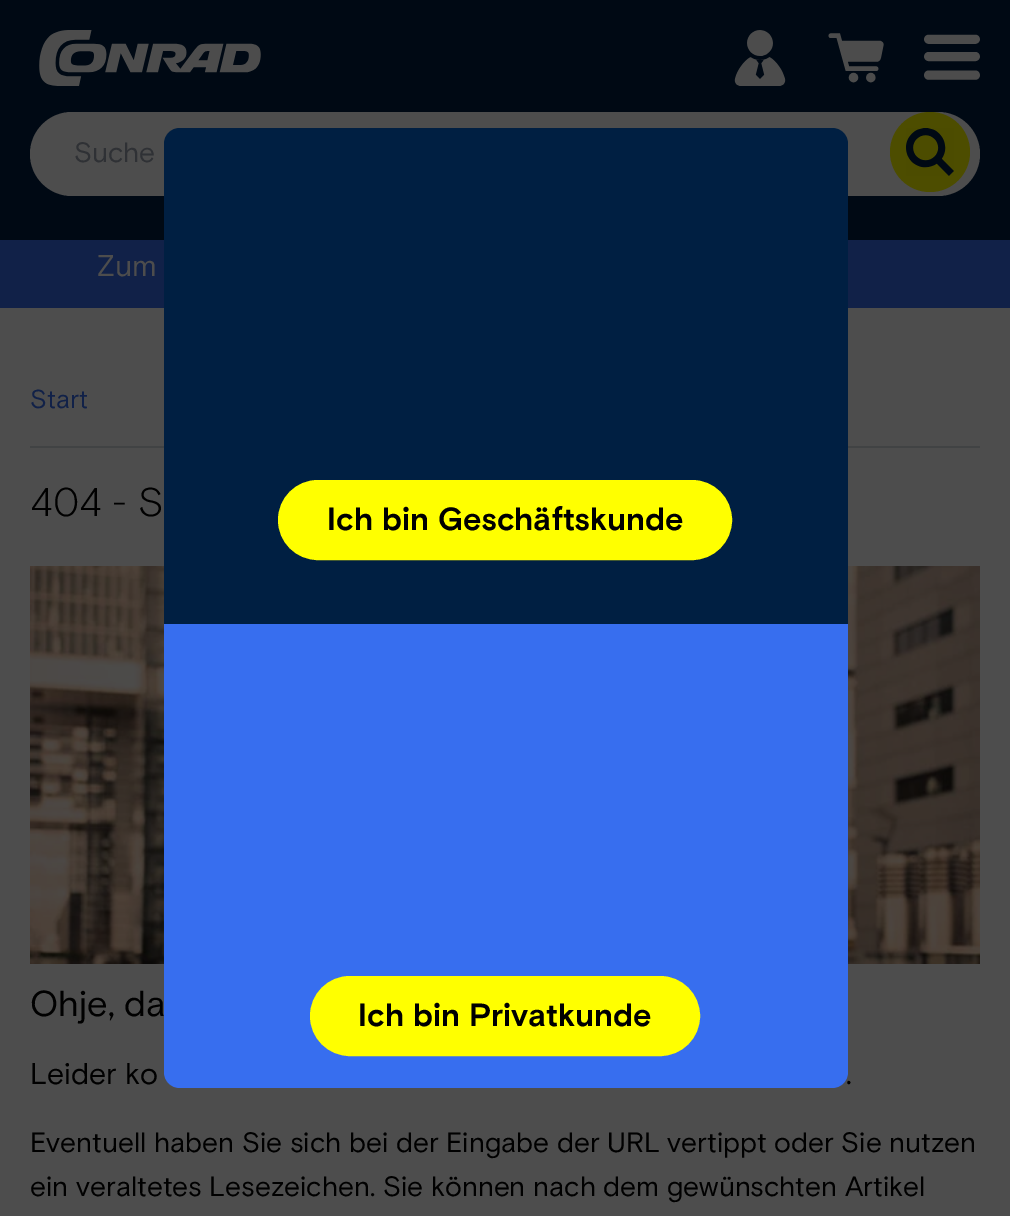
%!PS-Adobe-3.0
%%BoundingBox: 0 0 1010 1216
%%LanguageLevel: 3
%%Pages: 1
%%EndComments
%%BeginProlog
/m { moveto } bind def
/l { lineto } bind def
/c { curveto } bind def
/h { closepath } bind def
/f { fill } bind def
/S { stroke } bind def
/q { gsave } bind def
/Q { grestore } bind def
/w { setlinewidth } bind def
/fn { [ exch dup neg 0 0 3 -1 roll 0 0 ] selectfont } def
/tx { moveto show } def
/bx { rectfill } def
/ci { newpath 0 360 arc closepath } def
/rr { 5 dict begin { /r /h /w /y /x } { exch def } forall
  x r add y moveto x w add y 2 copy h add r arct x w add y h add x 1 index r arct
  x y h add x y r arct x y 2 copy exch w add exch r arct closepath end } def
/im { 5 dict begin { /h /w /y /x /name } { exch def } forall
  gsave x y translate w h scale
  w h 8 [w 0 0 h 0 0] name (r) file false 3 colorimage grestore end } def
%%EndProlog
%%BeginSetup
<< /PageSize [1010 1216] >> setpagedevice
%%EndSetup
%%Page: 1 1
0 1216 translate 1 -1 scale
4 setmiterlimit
0.302 setgray
0 0 1010 1216 bx
0 0.035 0.078 setrgbcolor
0 0 1010 240 bx
(image0.raw) 39 30 222 56 im
(image1.raw) 734 30 52 56 im
(image2.raw) 828 33 56 50 im
(image3.raw) 924 34 56 46 im
0.302 setgray
30 112 950 84 42 rr f
/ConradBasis-Regular 28 fn
0.184 0.192 0.208 setrgbcolor
(Suche) 74 162 tx
0.302 0.302 0 setrgbcolor
930 152 40 ci f
(image4.raw) 906 128 48 48 im
0.067 0.129 0.282 setrgbcolor
0 240 1010 68 bx
/ConradBasis-Regular 30 fn
0.302 setgray
(Zum) 97 276 tx
0.255 0.263 0.267 setrgbcolor
30 446 950 2 bx
(image5.raw) 30 566 950 398 im
0 0.122 0.259 setrgbcolor
180 128 m 832 128 l 841 128 848 135 848 144 c 848 624 l 164 624 l 164 144 l 164 135 171 128 180 128 c h f
1 1 0 setrgbcolor
280 482 450 76 38 rr q f Q
4 w
S
/ConradBasis-Bold 32 fn
0 setgray
(Ich bin Geschäftskunde) 327 530 tx
/ConradBasis-Regular 30 fn
(.) 846 1084 tx
0.216 0.431 0.937 setrgbcolor
164 624 m 848 624 l 848 1072 l 848 1081 841 1088 832 1088 c 180 1088 l 171 1088 164 1081 164 1072 c h f
1 1 0 setrgbcolor
312 978 386 76 38 rr q f Q
S
/ConradBasis-Bold 32 fn
0 setgray
(Ich bin Privatkunde) 358 1026 tx
/ConradBasis-Regular 26 fn
0.067 0.129 0.282 setrgbcolor
(Start) 30 408 tx
/ConradBasis-Light 40 fn
0 setgray
(404 - S) 30 516 tx
/ConradBasis-Regular 36 fn
(Ohje, da) 30 1016 tx
/ConradBasis-Regular 30 fn
(Leider ko) 30 1084 tx
/ConradBasis-Regular 28 fn
(Eventuell haben Sie sich bei der Eingabe der URL vertippt oder Sie nutzen) 30 1152 tx
(ein veraltetes Lesezeichen. Sie können nach dem gewünschten Artikel) 30 1196 tx
showpage
%%EOF
